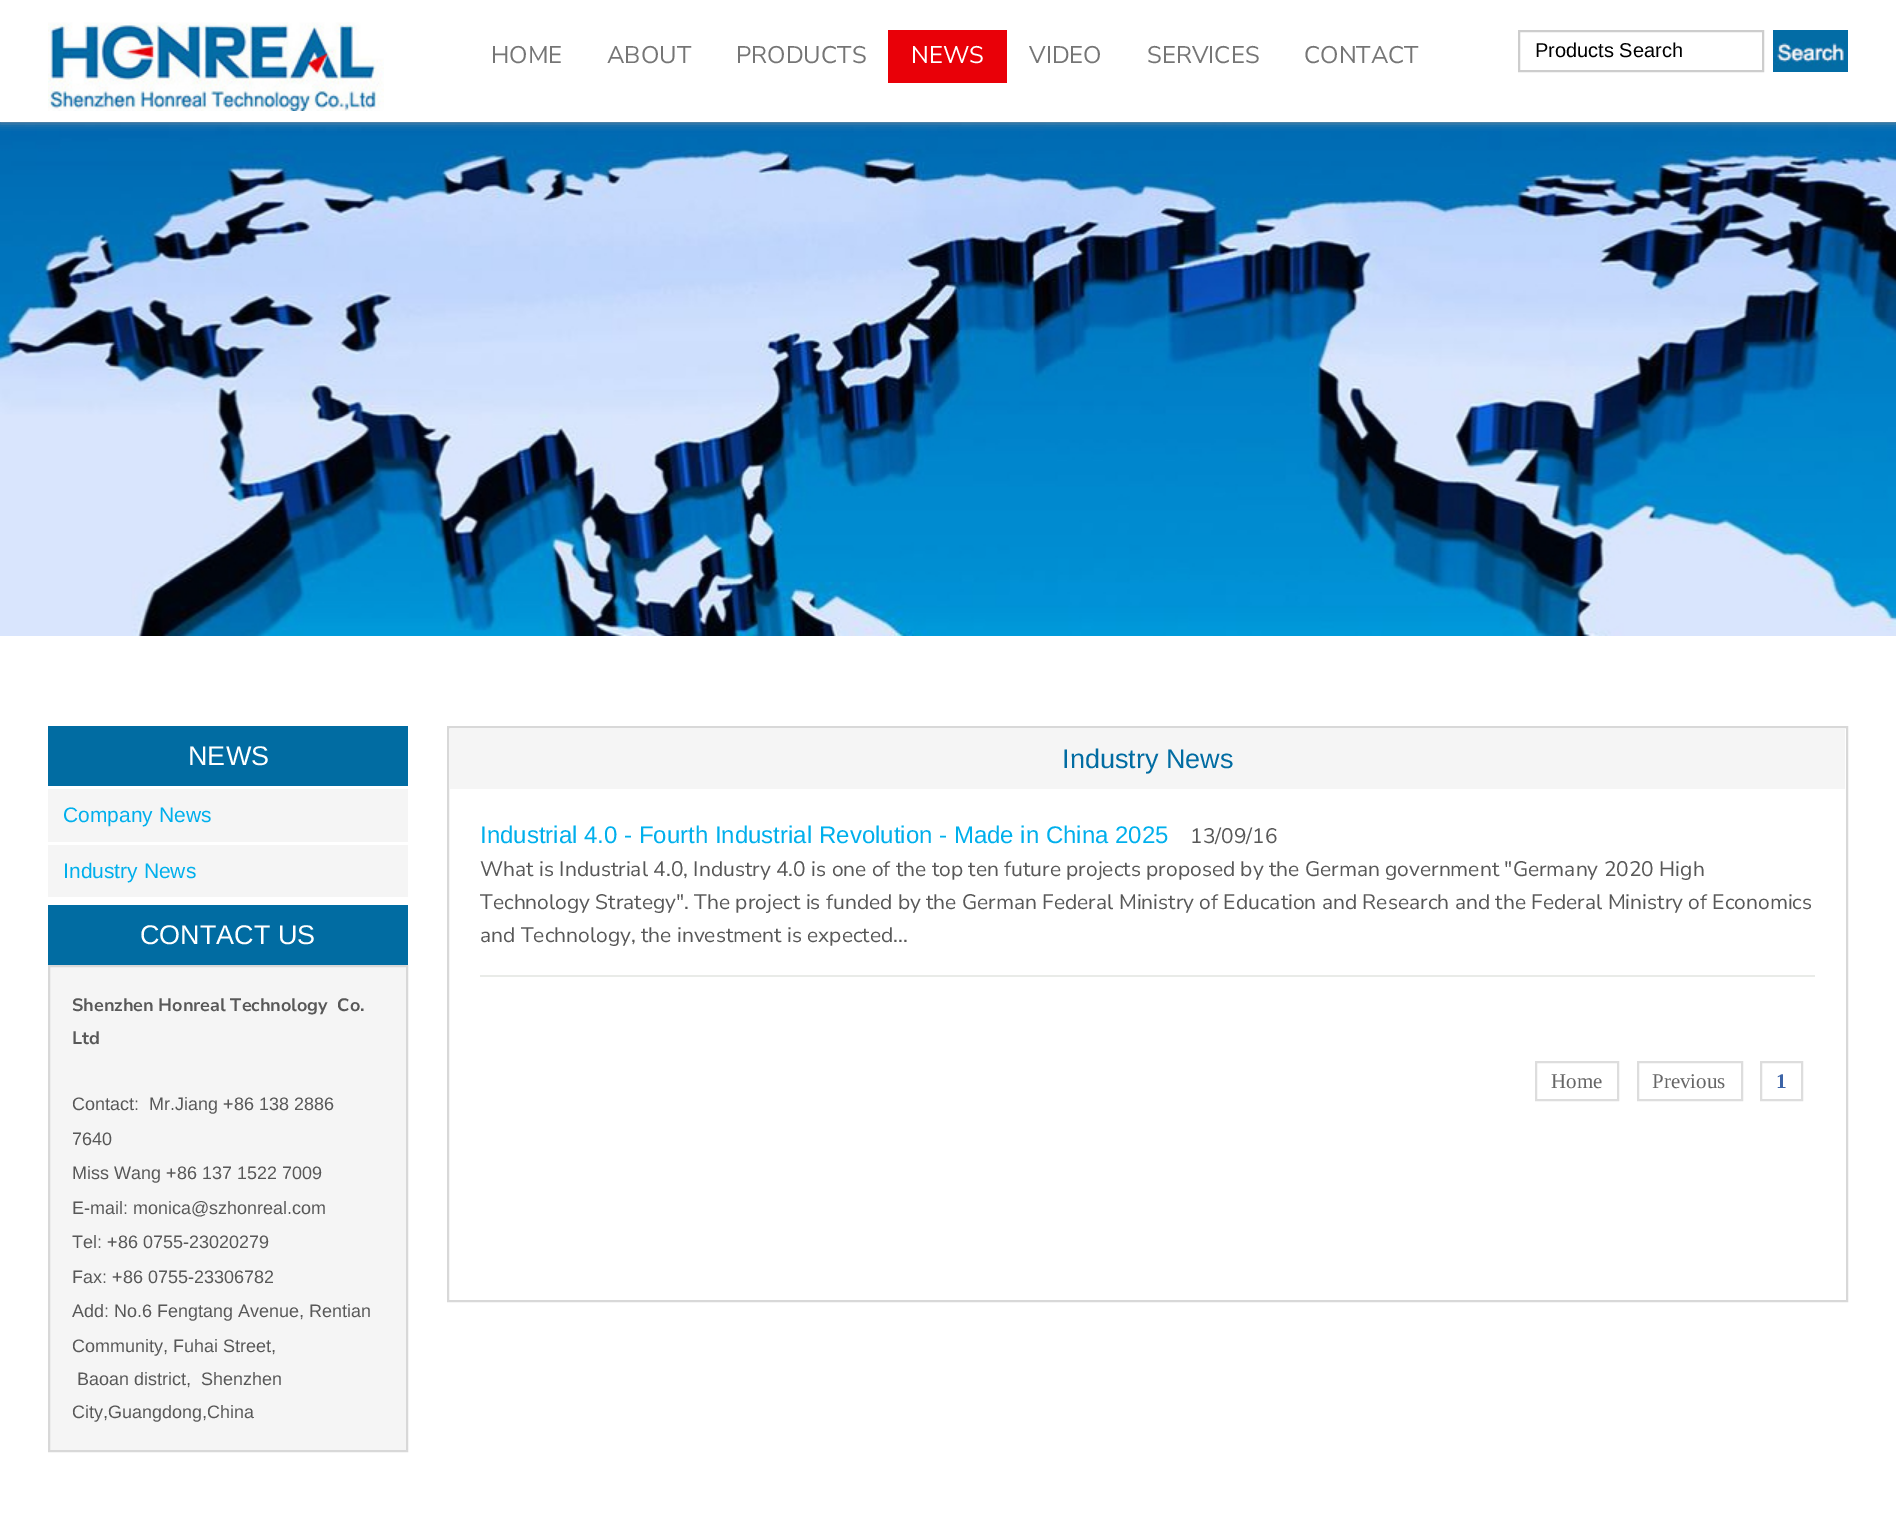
%!PS-Adobe-3.0
%%BoundingBox: 0 0 1896 1526
%%LanguageLevel: 3
%%Pages: 1
%%EndComments
%%BeginProlog
/m { moveto } bind def
/l { lineto } bind def
/h { closepath } bind def
/f { fill } bind def
/S { stroke } bind def
/q { gsave } bind def
/Q { grestore } bind def
/w { setlinewidth } bind def
/fn { [ exch dup neg 0 0 3 -1 roll 0 0 ] selectfont } def
/tx { moveto show } def
/bx { rectfill } def
/al { dup .setfillconstantalpha .setstrokeconstantalpha } def
/rr { 5 dict begin { /r /h /w /y /x } { exch def } forall
  x r add y moveto x w add y 2 copy h add r arct x w add y h add x 1 index r arct
  x y h add x y r arct x y 2 copy exch w add exch r arct closepath end } def
/sh { 12 dict begin { /a /b /q /h /w /y /x } { exch def } forall gsave /was 0 def
  9 -2 -9 { dup b mul 4 div /e exch def 1 sub .425 mul 2.718 exch exp 1 add a .99 .min exch div /now exch def
    1 1 now sub 1 was sub div sub al /was now def
    w h .min e 2 mul add 0 gt { x e sub y e sub w e 2 mul add h e 2 mul add
      q e add b .6 mul add w h .min 2 div e add .min 0 .max rr fill } if } for grestore end } def
/im { 5 dict begin { /h /w /y /x /name } { exch def } forall
  gsave x y translate w h scale
  w h 8 [w 0 0 h 0 0] name (r) file false 3 colorimage grestore end } def
%%EndProlog
%%BeginSetup
<< /PageSize [1896 1526] /PageUsesTransparency true >> setpagedevice
%%EndSetup
%%Page: 1 1
0 .pushpdf14devicefilter
0 1526 translate 1 -1 scale
4 setmiterlimit
1 setgray
0 0 1896 1526 bx
(image2.raw) 0 122 1896 514 im
0.604 setgray
0 0 1896 122 0 4 1 sh
1 setgray
0 0 1896 122 bx
(image0.raw) 48 22 336 89 im
/NunitoSans-Regular 24 fn
0.459 setgray
(HOME) 491 63 tx
(ABOUT) 607 63 tx
(PRODUCTS) 736 63 tx
0.914 0 0.031 setrgbcolor
888 30 119 53 bx
1 setgray
(NEWS) 911 63 tx
0.459 setgray
(VIDEO) 1029 63 tx
(SERVICES) 1147 63 tx
(CONTACT) 1304 63 tx
0.804 setgray
2 w
1519 31 244 40 rectstroke
/LiberationSans-Regular 20 fn
0 setgray
(Products Search) 1535 57 tx
(image1.raw) 1773 30 75 42 im
0.004 0.424 0.635 setrgbcolor
48 726 360 60 bx
/LiberationSans-Regular 27 fn
1 setgray
(NEWS) 188 765 tx
0.961 setgray
48 789 360 53 bx
/LiberationSans-Regular 21 fn
0 0.686 0.925 setrgbcolor
(Company News) 63 822 tx
0.961 setgray
48 845 360 52 bx
0 0.686 0.925 setrgbcolor
(Industry News) 63 878 tx
0.004 0.424 0.635 setrgbcolor
48 905 360 60 bx
/LiberationSans-Regular 27 fn
1 setgray
(CONTACT US) 140 944 tx
0.961 setgray
49 966 m 407 966 l 407 1451 l 49 1451 l h q f Q
0.847 setgray
S
/NunitoSans-Bold 18 fn
0.345 setgray
(Shenzhen Honreal Technology  Co.) 72 1011 tx
(Ltd) 72 1044 tx
/LiberationSans-Regular 18 fn
(Contact:  Mr.Jiang +86 138 2886) 72 1110 tx
(7640) 72 1145 tx
(Miss Wang +86 137 1522 7009) 72 1179 tx
(E-mail: monica@szhonreal.com) 72 1214 tx
(Tel: +86 0755-23020279) 72 1248 tx
(Fax: +86 0755-23306782) 72 1283 tx
(Add: No.6 Fengtang Avenue, Rentian) 72 1317 tx
(Community, Fuhai Street,) 72 1352 tx
(Baoan district,) 77 1385 tx
(Shenzhen) 201 1385 tx
(City,Guangdong,China) 72 1418 tx
0.847 setgray
448 727 1399 574 rectstroke
0.961 setgray
450 729 1395 60 bx
/LiberationSans-Regular 27 fn
0.004 0.424 0.635 setrgbcolor
(Industry News) 1062 768 tx
0.914 0.922 0.91 setrgbcolor
480 975 1335 2 bx
/LiberationSans-Regular 24 fn
0 0.686 0.925 setrgbcolor
(Industrial 4.0 - Fourth Industrial Revolution - Made in China 2025) 480 843 tx
/NunitoSans-Regular 21 fn
0.345 setgray
(13/09/16) 1190 843 tx
(What is Industrial 4.0, Industry 4.0 is one of the top ten future projects proposed by the German government "Germany 2020 High) 480 876 tx
(Technology Strategy". The project is funded by the German Federal Ministry of Education and Research and the Federal Ministry of Economics) 480 909 tx
(and Technology, the investment is expected...) 480 942 tx
0.867 setgray
1536 1062 82 38 rectstroke
/LiberationSerif-Regular 21 fn
0.4 setgray
(Home) 1551 1088 tx
0.867 setgray
1638 1062 104 38 rectstroke
0.4 setgray
(Previous) 1652 1088 tx
0.867 setgray
1761 1062 41 38 rectstroke
/LiberationSerif-Bold 21 fn
0.235 0.392 0.655 setrgbcolor
(1) 1776 1088 tx
.poppdf14devicefilter showpage
%%EOF
